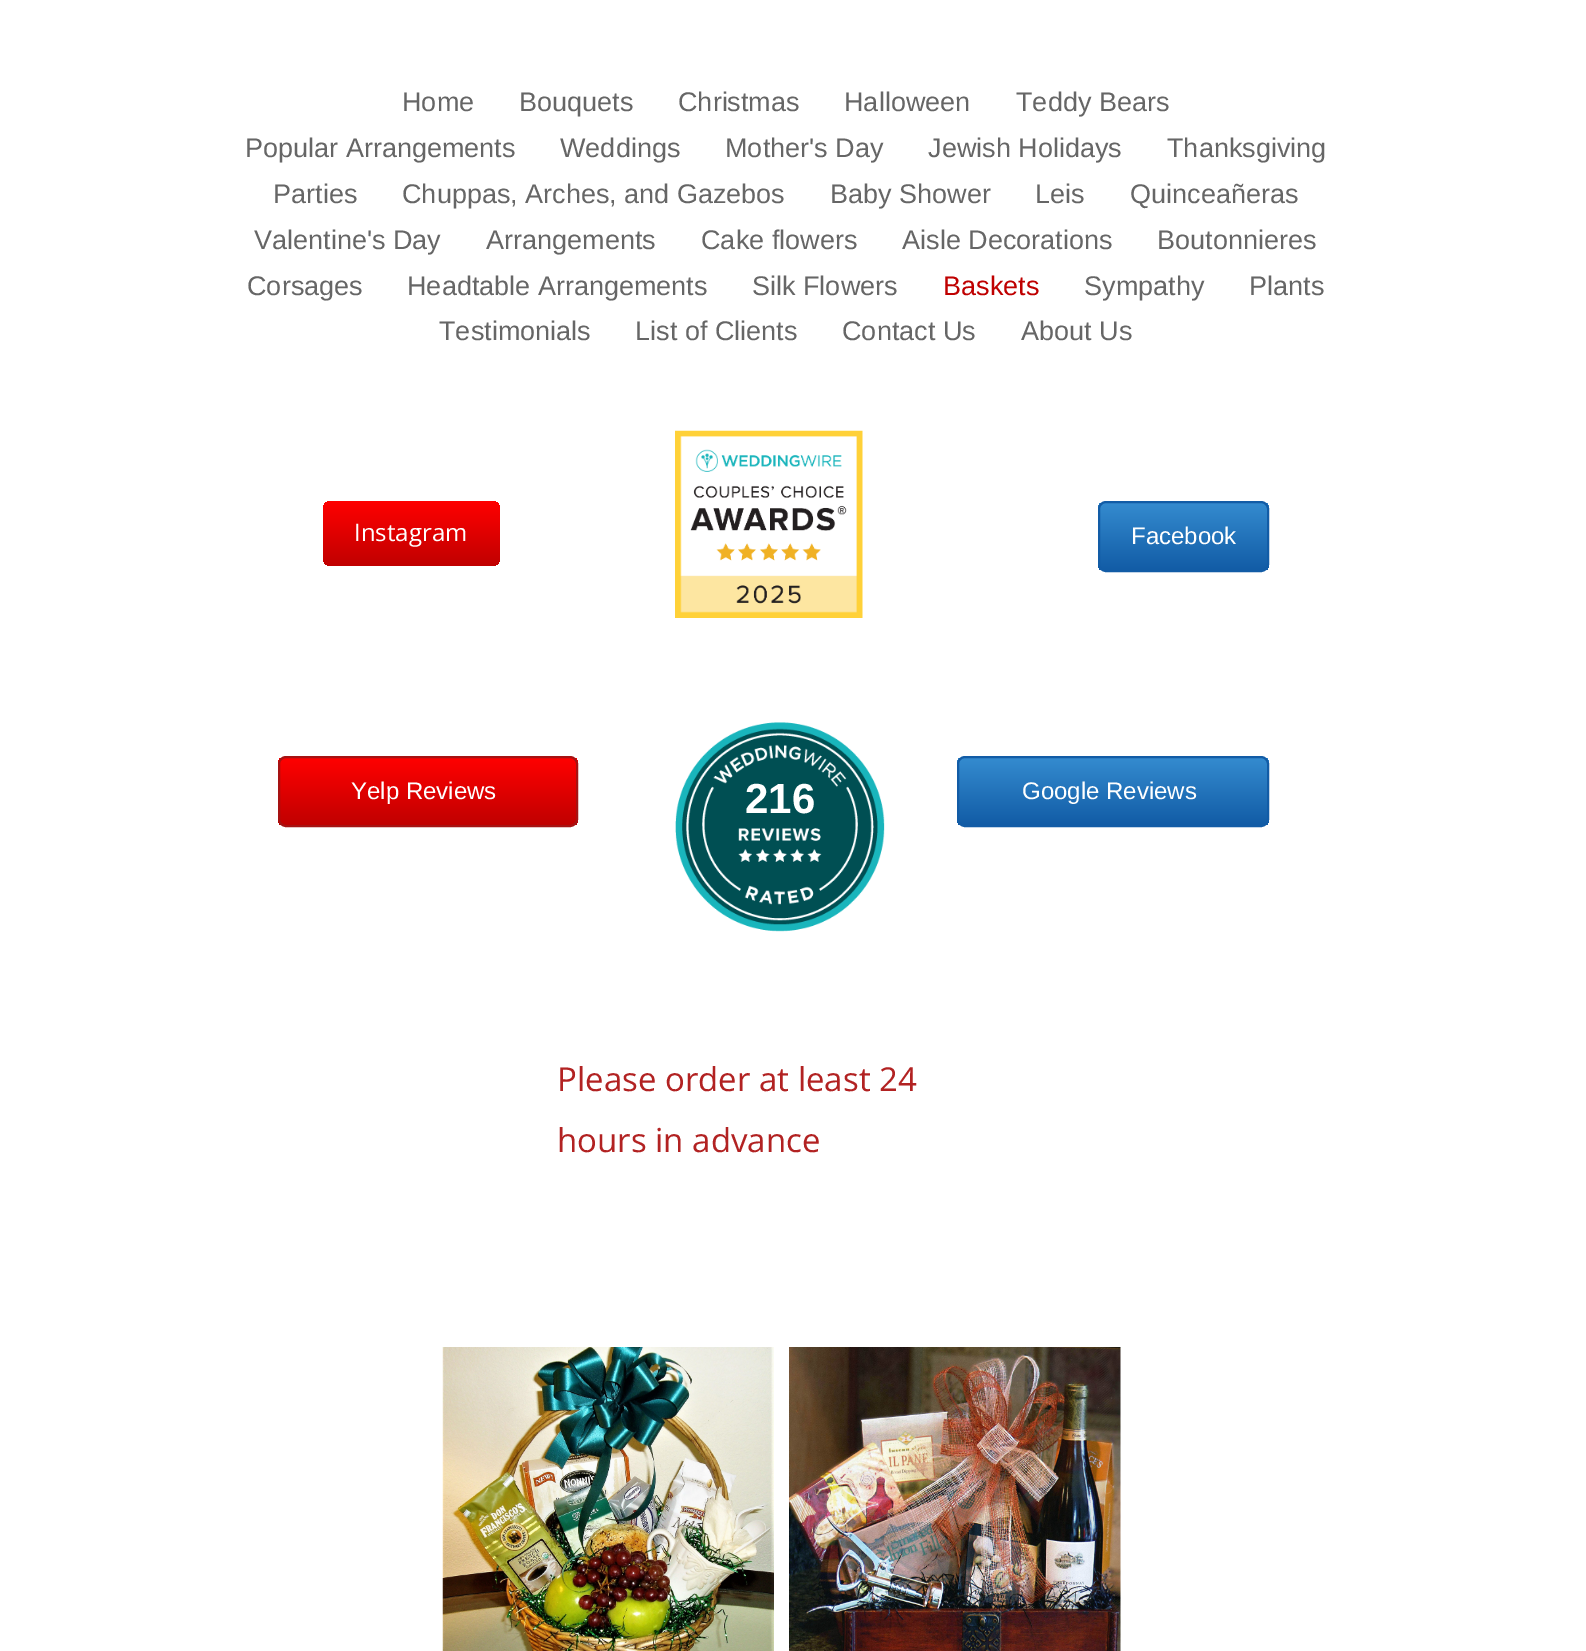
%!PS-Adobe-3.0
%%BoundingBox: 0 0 1586 1651
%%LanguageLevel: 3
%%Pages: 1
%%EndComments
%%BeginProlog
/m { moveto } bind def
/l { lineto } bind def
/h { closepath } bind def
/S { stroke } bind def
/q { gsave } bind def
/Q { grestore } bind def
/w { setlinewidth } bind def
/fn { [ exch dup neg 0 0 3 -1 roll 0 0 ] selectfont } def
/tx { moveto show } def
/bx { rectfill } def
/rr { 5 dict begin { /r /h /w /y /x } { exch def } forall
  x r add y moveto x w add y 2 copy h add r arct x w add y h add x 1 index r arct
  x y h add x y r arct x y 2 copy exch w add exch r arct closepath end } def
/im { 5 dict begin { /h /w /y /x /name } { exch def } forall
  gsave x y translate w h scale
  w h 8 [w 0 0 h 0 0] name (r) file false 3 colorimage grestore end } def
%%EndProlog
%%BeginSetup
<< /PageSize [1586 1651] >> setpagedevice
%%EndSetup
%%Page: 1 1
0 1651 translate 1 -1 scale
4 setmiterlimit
1 setgray
0 0 1586 1651 bx
/LiberationSans-Regular 27 fn
0.4 setgray
(Home) 402 111 tx
(Bouquets) 519 111 tx
(Christmas) 678 111 tx
(Halloween) 844 111 tx
(Teddy Bears) 1016 111 tx
(Popular Arrangements) 245 157 tx
(Weddings) 560 157 tx
(Mother's Day) 725 157 tx
(Jewish Holidays) 928 157 tx
(Thanksgiving) 1167 157 tx
(Parties) 273 203 tx
(Chuppas, Arches, and Gazebos) 402 203 tx
(Baby Shower) 830 203 tx
(Leis) 1035 203 tx
(Quinceañeras) 1130 203 tx
(Valentine's Day) 254 249 tx
(Arrangements) 486 249 tx
(Cake flowers) 701 249 tx
(Aisle Decorations) 902 249 tx
(Boutonnieres) 1157 249 tx
(Corsages) 247 295 tx
(Headtable Arrangements) 407 295 tx
(Silk Flowers) 752 295 tx
0.749 0 0 setrgbcolor
(Baskets) 943 295 tx
0.4 setgray
(Sympathy) 1084 295 tx
(Plants) 1249 295 tx
(Testimonials) 439 340 tx
(List of Clients) 635 340 tx
(Contact Us) 842 340 tx
(About Us) 1021 340 tx
q 323 501 177 65 8 rr clip newpath
<< /ShadingType 2 /ColorSpace /DeviceRGB /Coords [411 501 411 566] /Extend [true true] /Function << /FunctionType 2 /Domain [0 1] /C0 [1 0 0] /C1 [0.753 0 0] /N 1 >> >> shfill Q
/OpenSans-Regular 24 fn
1 setgray
(Instagram) 354 541 tx
(image0.raw) 675 430 188 188 im
q
1098 501 171 71 8 rr clip newpath
q 1098 503 m 1269 503 l 1269 570 l 1098 570 l h clip newpath
<< /ShadingType 2 /ColorSpace /DeviceRGB /Coords [1184 503 1184 570] /Extend [true true] /Function << /FunctionType 2 /Domain [0 1] /C0 [0.204 0.545 0.812] /C1 [0.071 0.361 0.651] /N 1 >> >> shfill Q
Q
0.071 0.361 0.651 setrgbcolor
2 w
1099 502 169 69 7 rr S
/LiberationSans-Regular 24 fn
1 setgray
(Facebook) 1131 544 tx
q
278 756 300 71 8 rr clip newpath
q 278 758 m 578 758 l 578 825 l 278 825 l h clip newpath
<< /ShadingType 2 /ColorSpace /DeviceRGB /Coords [428 758 428 825] /Extend [true true] /Function << /FunctionType 2 /Domain [0 1] /C0 [1 0 0] /C1 [0.753 0 0] /N 1 >> >> shfill Q
Q
0.651 0.071 0.071 setrgbcolor
279 757 298 69 7 rr S
1 setgray
(Yelp Reviews) 351 799 tx
(image1.raw) 675 722 210 210 im
/LiberationSans-Bold 42 fn
(216) 745 813 tx
q
957 756 312 71 8 rr clip newpath
q 957 758 m 1269 758 l 1269 825 l 957 825 l h clip newpath
<< /ShadingType 2 /ColorSpace /DeviceRGB /Coords [1113 758 1113 825] /Extend [true true] /Function << /FunctionType 2 /Domain [0 1] /C0 [0.204 0.545 0.812] /C1 [0.071 0.361 0.651] /N 1 >> >> shfill Q
Q
0.071 0.361 0.651 setrgbcolor
958 757 310 69 7 rr S
/LiberationSans-Regular 24 fn
1 setgray
(Google Reviews) 1022 799 tx
/OpenSans-Regular 33 fn
0.698 0.133 0.133 setrgbcolor
(Please order at least 24) 557 1091 tx
(hours in advance) 557 1152 tx
(image2.raw) 442 1347 332 304 im
(image3.raw) 789 1347 332 304 im
showpage
%%EOF
